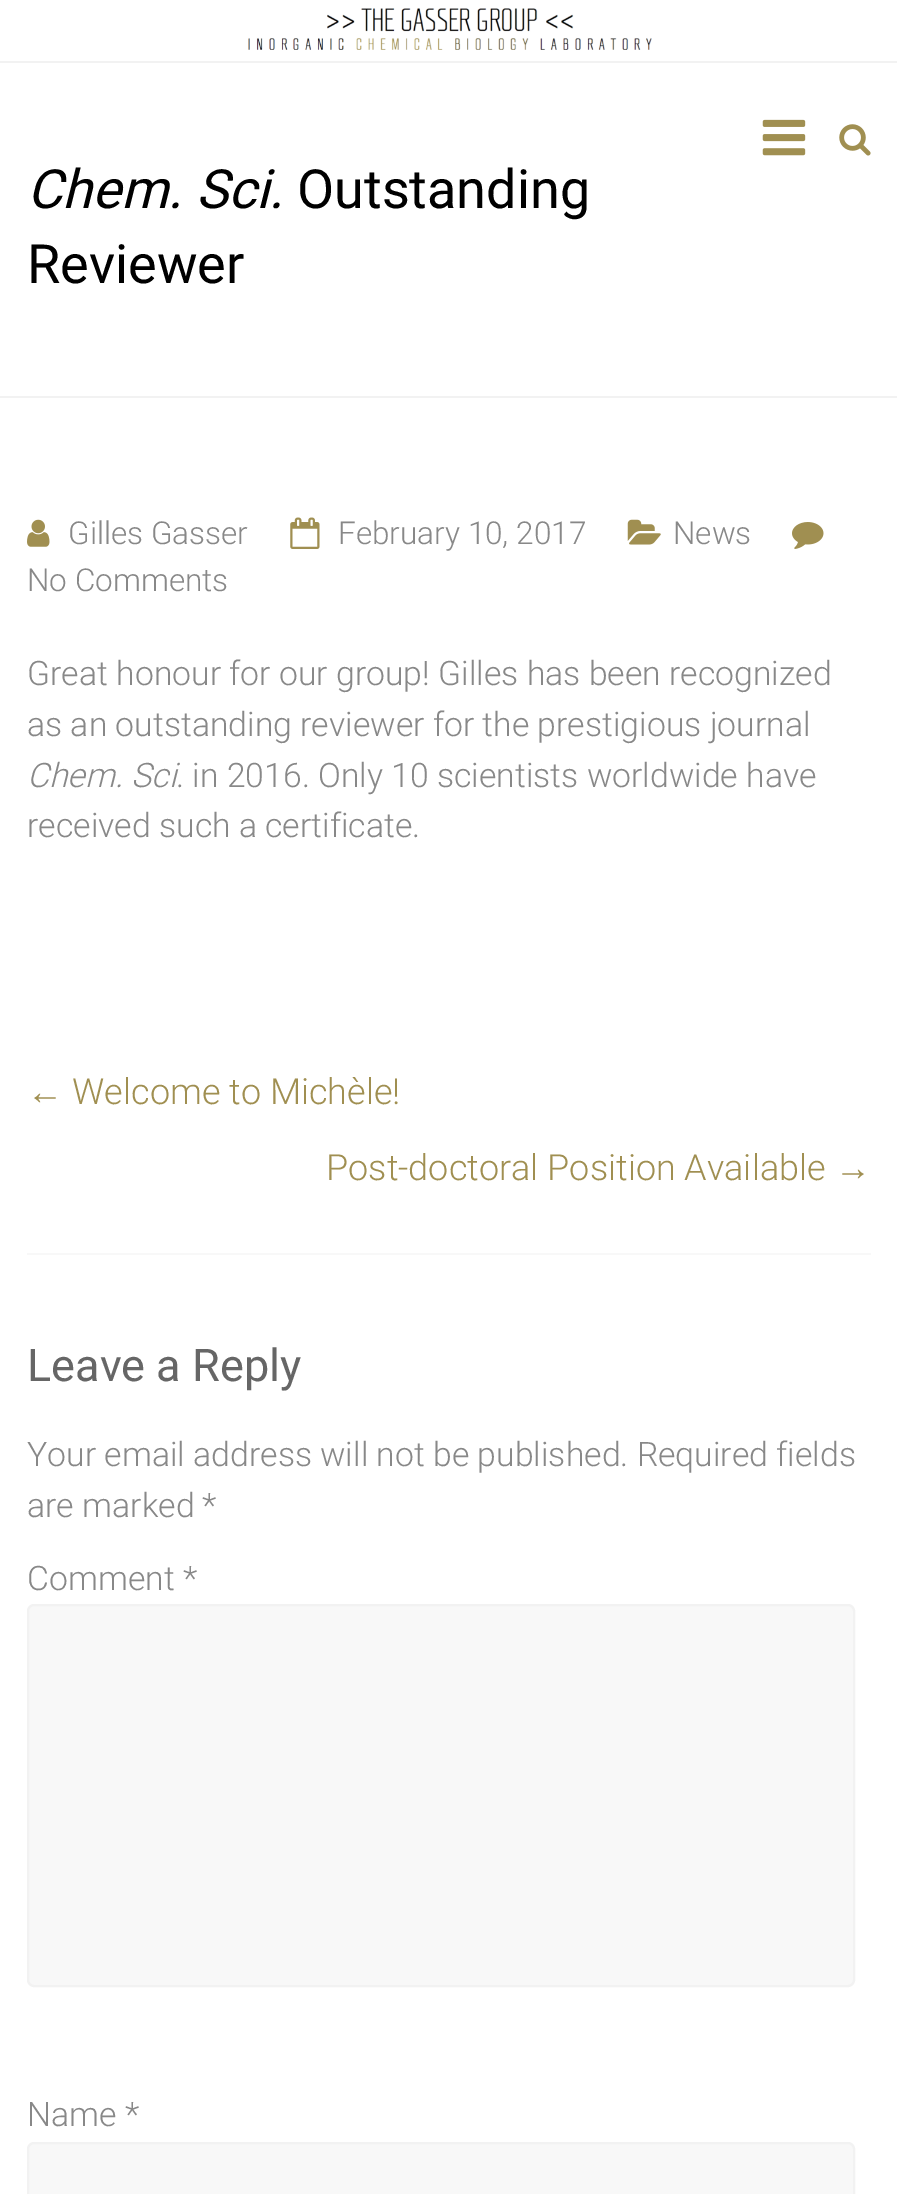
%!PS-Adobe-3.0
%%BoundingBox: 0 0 897 2194
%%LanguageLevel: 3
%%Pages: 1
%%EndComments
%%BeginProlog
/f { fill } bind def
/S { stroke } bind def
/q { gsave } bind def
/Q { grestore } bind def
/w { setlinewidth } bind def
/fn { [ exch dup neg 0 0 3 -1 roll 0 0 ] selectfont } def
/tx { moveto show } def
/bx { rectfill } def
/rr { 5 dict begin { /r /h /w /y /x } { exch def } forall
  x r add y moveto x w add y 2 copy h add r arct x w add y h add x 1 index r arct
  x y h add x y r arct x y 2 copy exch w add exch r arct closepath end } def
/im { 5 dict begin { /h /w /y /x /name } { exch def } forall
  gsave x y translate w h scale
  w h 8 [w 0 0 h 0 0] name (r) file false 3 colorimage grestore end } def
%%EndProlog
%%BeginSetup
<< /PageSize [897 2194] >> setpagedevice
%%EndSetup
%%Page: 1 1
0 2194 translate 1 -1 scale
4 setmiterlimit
1 setgray
0 0 897 2194 bx
0.949 setgray
0 61 897 2 bx
(image0.raw) 248 8 404 42 im
(image1.raw) 762 119 44 37 im
(image2.raw) 839 124 32 32 im
0 396 897 2 bx
/Roboto-Italic 54 fn
0 setgray
(Chem. Sci.) 27 208 tx
/Roboto-Regular 54 fn
(Outstanding) 297 208 tx
(Reviewer) 27 283 tx
(image3.raw) 27 519 23 28 im
/Roboto-Light 31.5 fn
0.533 setgray
(Gilles Gasser) 68 544 tx
(image4.raw) 290 517 30 32 im
(February 10, 2017) 338 544 tx
(image5.raw) 627 519 34 26 im
(News) 673 544 tx
(image6.raw) 792 522 32 27 im
(No Comments) 27 591 tx
/Roboto-Light 33.75 fn
(Great honour for our group! Gilles has been recognized) 27 685 tx
(as an outstanding reviewer for the prestigious journal) 27 736 tx
/Roboto-LightItalic 33.75 fn
(Chem. Sci) 27 787 tx
/Roboto-Light 33.75 fn
(. in 2016. Only 10 scientists worldwide have) 176 787 tx
(received such a certificate.) 27 837 tx
/LiberationSans-Regular 36 fn
0.627 0.561 0.318 setrgbcolor
(←) 27 1104 tx
/Roboto-Light 36 fn
(Welcome to Michèle!) 72 1104 tx
(Post-doctoral Position Available) 326 1180 tx
/LiberationSans-Regular 36 fn
(→) 835 1180 tx
0.973 setgray
27 1253 844 2 bx
/Roboto-Regular 45 fn
0.4 setgray
(Leave a Reply) 27 1381 tx
/Roboto-Light 33.75 fn
0.533 setgray
(Your email address will not be published. Required fields) 27 1466 tx
(are marked *) 27 1517 tx
(Comment *) 27 1590 tx
0.973 setgray
28 1605 826 381 6 rr q f Q
0.949 setgray
2 w
S
0.533 setgray
(Name *) 27 2126 tx
0.973 setgray
28 2143 826 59 6 rr q f Q
0.949 setgray
S
showpage
%%EOF
